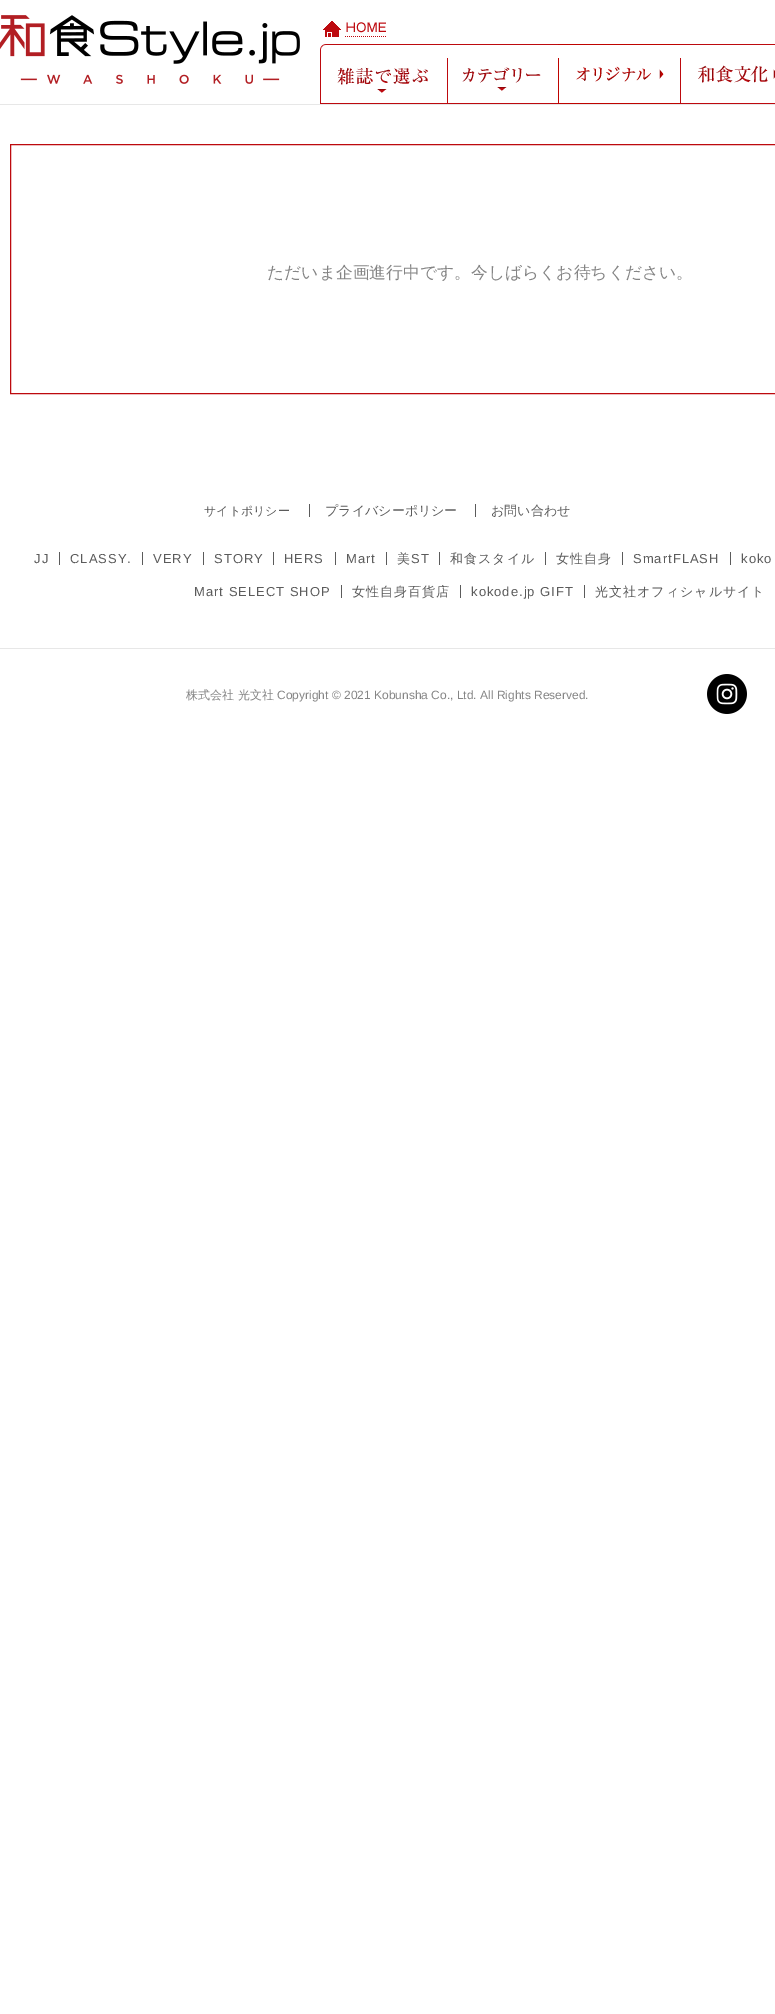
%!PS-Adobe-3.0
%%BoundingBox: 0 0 775 2014
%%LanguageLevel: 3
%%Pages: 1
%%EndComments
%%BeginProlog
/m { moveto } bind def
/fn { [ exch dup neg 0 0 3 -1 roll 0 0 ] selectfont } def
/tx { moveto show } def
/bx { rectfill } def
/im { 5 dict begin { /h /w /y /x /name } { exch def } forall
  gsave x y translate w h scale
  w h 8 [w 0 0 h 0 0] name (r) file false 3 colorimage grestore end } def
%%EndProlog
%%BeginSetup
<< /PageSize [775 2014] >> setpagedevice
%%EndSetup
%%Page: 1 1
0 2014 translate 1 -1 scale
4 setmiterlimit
1 setgray
0 0 775 2014 bx
0.906 setgray
0 104 775 1 bx
(image0.raw) 0 15 300 69 im
(image1.raw) 323 20 63 17 im
(image2.raw) 320 44 127 60 im
(image3.raw) 447 44 111 60 im
(image4.raw) 558 44 122 60 im
(image5.raw) 680 44 95 60 im
0.741 0.039 0.055 setrgbcolor
10.5 144.5 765 249 rectstroke
/WenQuanYiZenHei-Medium 16.8 fn
0.522 setgray
(ただいま企画進行中です。今しばらくお待ちください。) 267 278 tx
/WenQuanYiZenHei-Medium 12 fn
0.357 setgray
(サイトポリシー) 204 515 tx
309 504 1 13 bx
/WenQuanYiZenHei-Medium 13 fn
(プライバシーポリシー) 325 515 tx
475 504 1 13 bx
(お問い合わせ) 491 515 tx
/LiberationSans-Regular 13 fn
34 563 m 1 0 (JJ) ashow
59 552 1 13 bx
70 563 m 1 0 (CLASSY.) ashow
142 552 1 13 bx
153 563 m 1 0 (VERY) ashow
203 552 1 13 bx
214 563 m 1 0 (STORY) ashow
273 552 1 13 bx
284 563 m 1 0 (HERS) ashow
335 552 1 13 bx
346 563 m 1 0 (Mart) ashow
386 552 1 13 bx
/WenQuanYiZenHei-Medium 13 fn
397 563 m 1 0 (美) ashow
/LiberationSans-Regular 13 fn
411 563 m 1 0 (ST) ashow
439 552 1 13 bx
/WenQuanYiZenHei-Medium 13 fn
450 563 m 1 0 (和食スタイル) ashow
545 552 1 13 bx
556 563 m 1 0 (女性自身) ashow
622 552 1 13 bx
/LiberationSans-Regular 13 fn
633 563 m 1 0 (SmartFLASH) ashow
730 552 1 13 bx
741 563 m 1 0 (koko) ashow
194 596 m 1 0 (Mart SELECT SHOP) ashow
341 585 1 13 bx
/WenQuanYiZenHei-Medium 13 fn
352 596 m 1 0 (女性自身百貨店) ashow
460 585 1 13 bx
/LiberationSans-Regular 13 fn
471 596 m 1 0 (kokode.jp GIFT) ashow
584 585 1 13 bx
/WenQuanYiZenHei-Medium 13 fn
595 596 m 1 0 (光文社オフィシャルサイト) ashow
0.906 setgray
0 648 775 1 bx
/WenQuanYiZenHei-Medium 12 fn
0.522 setgray
(株式会社 光文社) 186 699 tx
/LiberationSans-Regular 12 fn
(Copyright © 2021 Kobunsha Co., Ltd. All Rights Reserved.) 277 699 tx
(image6.raw) 707 674 40 40 im
showpage
%%EOF
